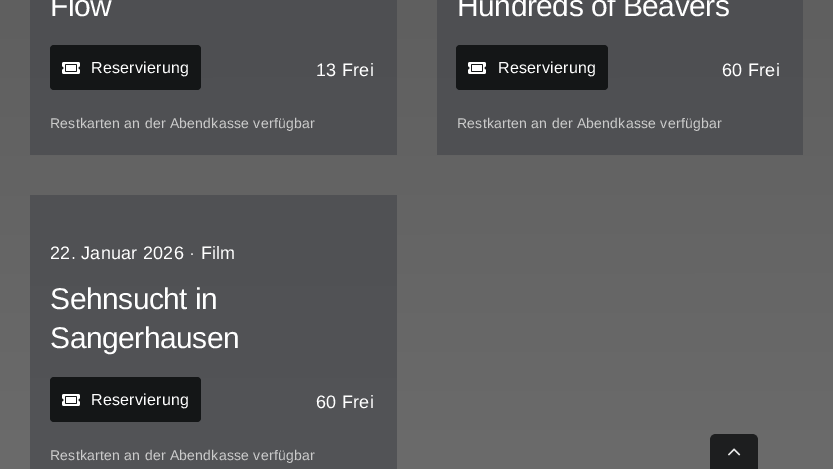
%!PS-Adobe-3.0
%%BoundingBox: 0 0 833 469
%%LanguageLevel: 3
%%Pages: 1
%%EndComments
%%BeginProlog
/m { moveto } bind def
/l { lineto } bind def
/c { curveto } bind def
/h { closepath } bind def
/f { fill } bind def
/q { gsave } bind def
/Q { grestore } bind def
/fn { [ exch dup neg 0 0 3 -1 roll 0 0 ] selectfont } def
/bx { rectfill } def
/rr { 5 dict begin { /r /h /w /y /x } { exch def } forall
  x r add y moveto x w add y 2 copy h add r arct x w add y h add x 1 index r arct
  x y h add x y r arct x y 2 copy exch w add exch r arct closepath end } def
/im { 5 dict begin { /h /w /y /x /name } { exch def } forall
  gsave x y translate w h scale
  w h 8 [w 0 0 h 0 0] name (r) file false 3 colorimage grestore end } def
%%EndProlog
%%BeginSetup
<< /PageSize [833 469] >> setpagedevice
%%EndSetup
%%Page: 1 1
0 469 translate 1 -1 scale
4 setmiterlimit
1 setgray
0 0 833 469 bx
q 0 0 m 833 0 l 833 469 l 0 469 l h clip newpath
<< /ShadingType 2 /ColorSpace /DeviceRGB /Coords [416 -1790 417 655] /Extend [true true] /Function << /FunctionType 2 /Domain [0 1] /C0 [0.188 0.188 0.188] /C1 [0.439 0.439 0.439] /N 1 >> >> shfill Q
q 30 195 m 397 195 l 397 469 l 30 469 l h clip newpath
<< /ShadingType 2 /ColorSpace /DeviceRGB /Coords [416 -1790 417 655] /Extend [true true] /Function << /FunctionType 2 /Domain [0 1] /C0 [0.231 0.239 0.247] /C1 [0.333 0.337 0.349] /N 1 >> >> shfill Q
q 437 0 m 803 0 l 803 155 l 437 155 l h clip newpath
<< /ShadingType 2 /ColorSpace /DeviceRGB /Coords [416 -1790 417 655] /Extend [true true] /Function << /FunctionType 2 /Domain [0 1] /C0 [0.231 0.239 0.247] /C1 [0.333 0.337 0.349] /N 1 >> >> shfill Q
q 30 0 m 397 0 l 397 155 l 30 155 l h clip newpath
<< /ShadingType 2 /ColorSpace /DeviceRGB /Coords [416 -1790 417 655] /Extend [true true] /Function << /FunctionType 2 /Domain [0 1] /C0 [0.231 0.239 0.247] /C1 [0.333 0.337 0.349] /N 1 >> >> shfill Q
/LiberationSans-Regular 30 fn
50 16 m -0.5 0 (Flow) ashow
0.078 0.086 0.09 setrgbcolor
50 45 151 45 4 rr f
(image0.raw) 62 62 18 12 im
/LiberationSans-Regular 16 fn
1 setgray
91 73 m 0.25 0 (Reservierung) ashow
/LiberationSans-Regular 18 fn
316 76 m 0.25 0 (13 Frei) ashow
/LiberationSans-Regular 14 fn
0.8 setgray
50 128 m 0.25 0 (Restkarten an der Abendkasse verfügbar) ashow
/LiberationSans-Regular 30 fn
1 setgray
457 16 m -0.5 0 (Hundreds of Beavers) ashow
0.078 0.086 0.09 setrgbcolor
456 45 152 45 4 rr f
(image0.raw) 468 62 18 12 im
/LiberationSans-Regular 16 fn
1 setgray
498 73 m 0.25 0 (Reservierung) ashow
/LiberationSans-Regular 18 fn
722 76 m 0.25 0 (60 Frei) ashow
/LiberationSans-Regular 14 fn
0.8 setgray
457 128 m 0.25 0 (Restkarten an der Abendkasse verfügbar) ashow
/LiberationSans-Regular 18 fn
1 setgray
50 259 m 0.25 0 (22. Januar 2026 · Film) ashow
/LiberationSans-Regular 30 fn
50 309 m -0.5 0 (Sehnsucht in) ashow
50 348 m -0.5 0 (Sangerhausen) ashow
0.078 0.086 0.09 setrgbcolor
50 377 151 45 4 rr f
(image0.raw) 62 394 18 12 im
/LiberationSans-Regular 16 fn
1 setgray
91 405 m 0.25 0 (Reservierung) ashow
/LiberationSans-Regular 18 fn
316 408 m 0.25 0 (60 Frei) ashow
/LiberationSans-Regular 14 fn
0.8 setgray
50 460 m 0.25 0 (Restkarten an der Abendkasse verfügbar) ashow
0.114 0.118 0.122 setrgbcolor
716 434 m 752 434 l 755.5 434 758 436.5 758 440 c 758 469 l 710 469 l 710 440 l 710 436.5 712.5 434 716 434 c h f
(image1.raw) 728 448 13 8 im
showpage
%%EOF
